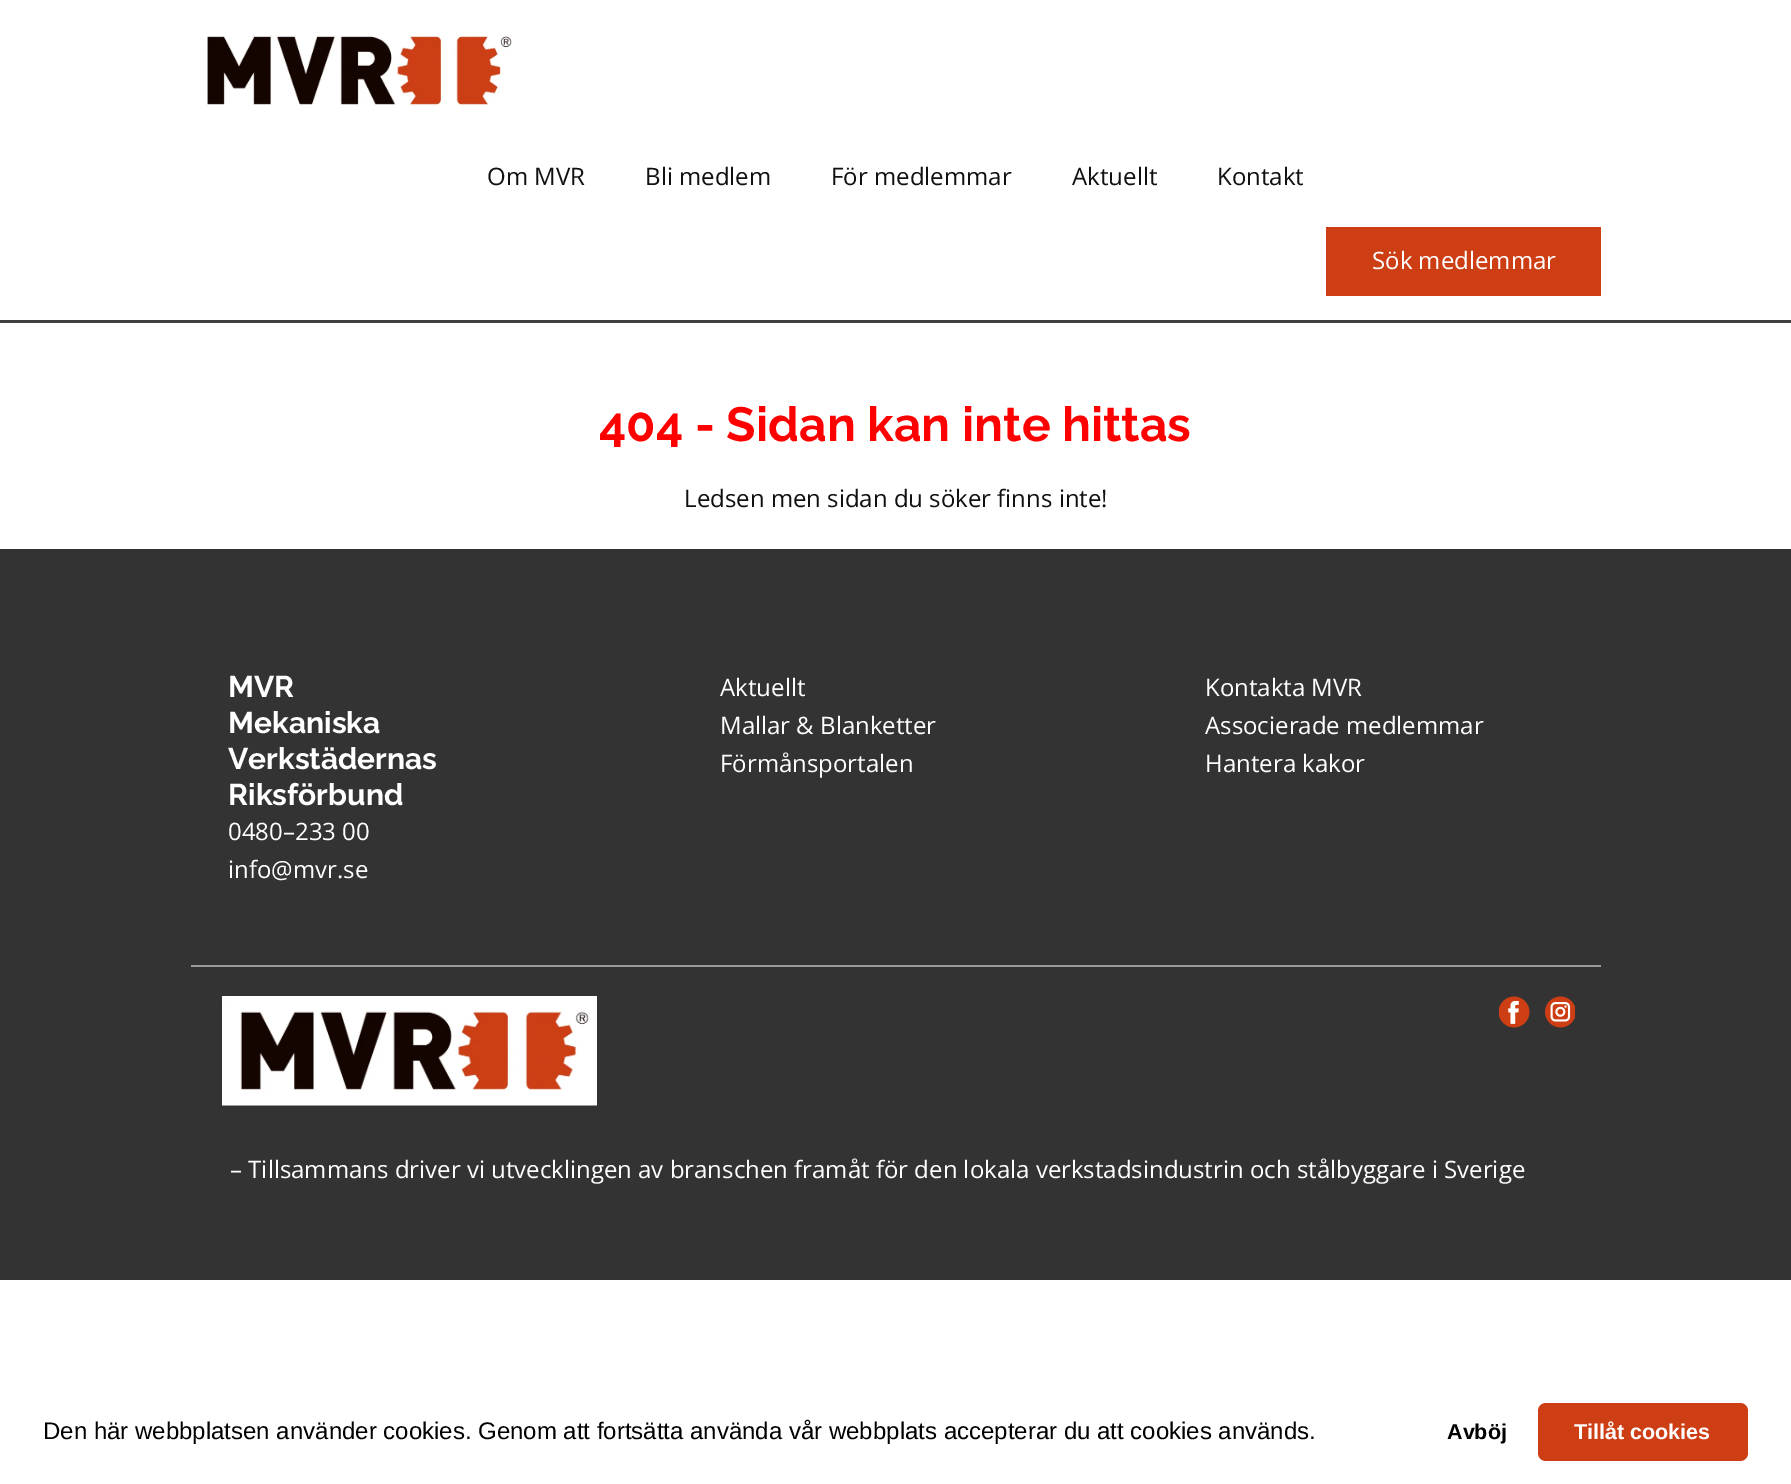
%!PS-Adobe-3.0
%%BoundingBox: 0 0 1791 1484
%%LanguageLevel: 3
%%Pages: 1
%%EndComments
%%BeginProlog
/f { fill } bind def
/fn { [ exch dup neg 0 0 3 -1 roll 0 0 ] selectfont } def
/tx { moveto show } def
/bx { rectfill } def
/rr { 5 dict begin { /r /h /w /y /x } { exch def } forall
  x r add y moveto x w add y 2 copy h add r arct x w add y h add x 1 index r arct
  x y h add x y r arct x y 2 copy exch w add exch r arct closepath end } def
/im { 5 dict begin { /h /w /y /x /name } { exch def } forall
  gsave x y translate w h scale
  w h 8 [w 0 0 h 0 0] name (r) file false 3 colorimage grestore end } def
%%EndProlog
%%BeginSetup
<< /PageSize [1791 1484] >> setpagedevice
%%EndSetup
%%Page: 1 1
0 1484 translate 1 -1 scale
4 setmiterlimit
1 setgray
0 0 1791 1484 bx
0.251 setgray
0 320 1791 3 bx
(image0.raw) 207 35 305 70 im
/OpenSans-Regular 24 fn
0.067 setgray
(Om MVR) 487 185 tx
(Bli medlem) 645 185 tx
(För medlemmar) 831 185 tx
(Aktuellt) 1072 185 tx
(Kontakt) 1217 185 tx
0.804 0.243 0.082 setrgbcolor
1326 227 275 69 bx
1 setgray
(Sök medlemmar) 1372 269 tx
/Raleway-Bold 48 fn
1 0 0 setrgbcolor
(404 - Sidan kan inte hittas) 599 441 tx
/OpenSans-Regular 24 fn
0.067 setgray
(Ledsen men sidan du söker finns inte!) 684 507 tx
0.2 setgray
0 549 1791 731 bx
/Raleway-Bold 30 fn
1 setgray
(MVR) 228 697 tx
(Mekaniska) 228 733 tx
(Verkstädernas) 228 769 tx
(Riksförbund) 228 805 tx
/OpenSans-Regular 24 fn
(0480–233 00) 228 840 tx
(info@mvr.se) 228 878 tx
(Aktuellt) 720 696 tx
(Mallar & Blanketter) 720 734 tx
(Förmånsportalen) 720 772 tx
(Kontakta MVR) 1205 696 tx
(Associerade medlemmar) 1205 734 tx
(Hantera kakor) 1205 772 tx
0.6 setgray
191 965 1410 2 bx
(image1.raw) 222 996 375 110 im
(image2.raw) 1499 996 31 32 im
(image3.raw) 1545 996 30 32 im
1 setgray
(– Tillsammans driver vi utvecklingen av branschen framåt för den lokala verkstadsindustrin och stålbyggare i Sverige) 230 1178 tx
/LiberationSans-Regular 24 fn
0 setgray
(Den här webbplatsen använder cookies. Genom att fortsätta använda vår webbplats accepterar du att cookies används.) 43 1439 tx
/LiberationSans-Bold 21.5 fn
(Avböj) 1447 1439 tx
0.804 0.243 0.082 setrgbcolor
1538 1403 210 58 8 rr f
1 setgray
(Tillåt cookies) 1574 1439 tx
showpage
%%EOF
